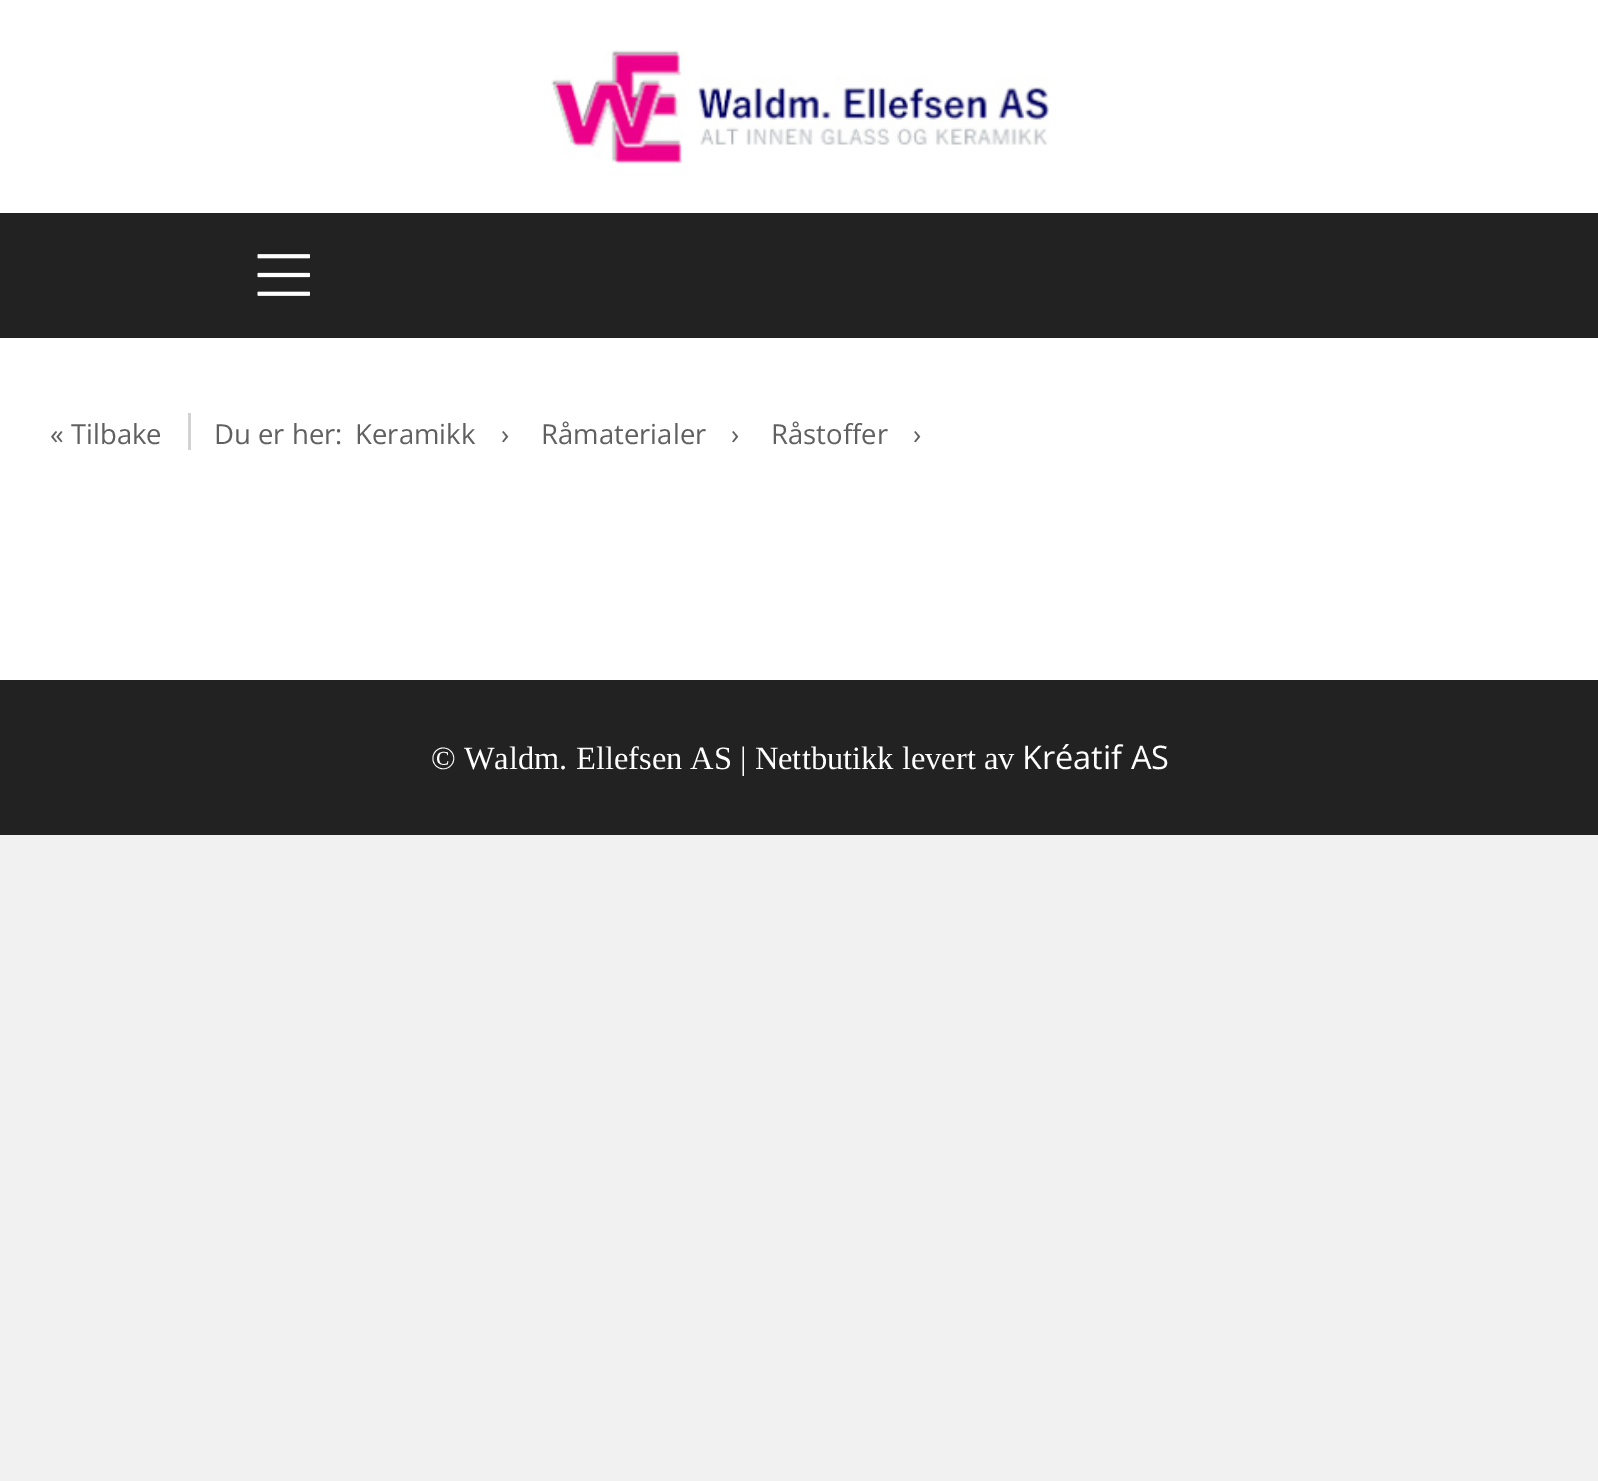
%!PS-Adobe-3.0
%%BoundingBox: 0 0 1598 1481
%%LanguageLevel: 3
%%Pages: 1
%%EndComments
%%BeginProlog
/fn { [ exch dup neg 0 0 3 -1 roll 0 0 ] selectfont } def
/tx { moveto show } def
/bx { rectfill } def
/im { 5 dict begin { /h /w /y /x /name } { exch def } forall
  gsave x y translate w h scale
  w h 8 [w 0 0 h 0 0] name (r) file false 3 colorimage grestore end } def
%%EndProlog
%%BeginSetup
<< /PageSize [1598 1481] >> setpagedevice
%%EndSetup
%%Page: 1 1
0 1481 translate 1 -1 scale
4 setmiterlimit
0.945 setgray
0 0 1598 1481 bx
1 setgray
0 0 1598 680 bx
(image0.raw) 551 50 499 114 im
0.133 setgray
0 213 1598 125 bx
(image1.raw) 257 254 53 42 im
/OpenSans-Regular 27.5 fn
0.376 setgray
(« Tilbake) 50 444 tx
0.827 setgray
188 413 3 37 bx
0.376 setgray
(Du er her:) 214 444 tx
(Keramikk) 355 444 tx
(›) 501 444 tx
(Råmaterialer) 541 444 tx
(›) 731 444 tx
(Råstoffer) 771 444 tx
(›) 913 444 tx
0.133 setgray
0 680 1598 155 bx
/LiberationSerif-Regular 32.5 fn
1 setgray
(© Waldm. Ellefsen AS | Nettbutikk levert av) 431 769 tx
/OpenSans-Regular 32.5 fn
(Kréatif AS) 1022 769 tx
showpage
%%EOF
